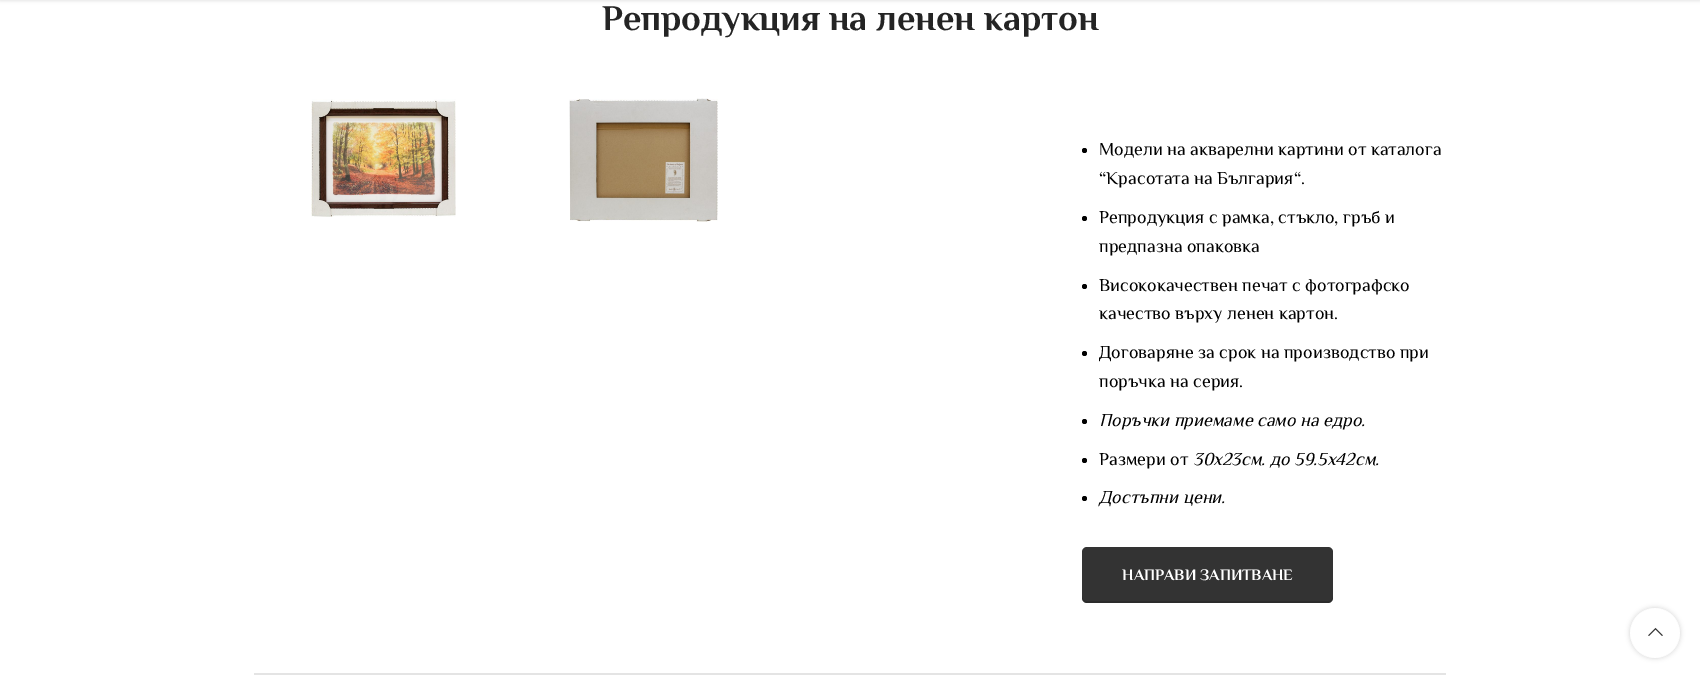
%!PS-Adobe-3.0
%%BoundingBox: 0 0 1700 678
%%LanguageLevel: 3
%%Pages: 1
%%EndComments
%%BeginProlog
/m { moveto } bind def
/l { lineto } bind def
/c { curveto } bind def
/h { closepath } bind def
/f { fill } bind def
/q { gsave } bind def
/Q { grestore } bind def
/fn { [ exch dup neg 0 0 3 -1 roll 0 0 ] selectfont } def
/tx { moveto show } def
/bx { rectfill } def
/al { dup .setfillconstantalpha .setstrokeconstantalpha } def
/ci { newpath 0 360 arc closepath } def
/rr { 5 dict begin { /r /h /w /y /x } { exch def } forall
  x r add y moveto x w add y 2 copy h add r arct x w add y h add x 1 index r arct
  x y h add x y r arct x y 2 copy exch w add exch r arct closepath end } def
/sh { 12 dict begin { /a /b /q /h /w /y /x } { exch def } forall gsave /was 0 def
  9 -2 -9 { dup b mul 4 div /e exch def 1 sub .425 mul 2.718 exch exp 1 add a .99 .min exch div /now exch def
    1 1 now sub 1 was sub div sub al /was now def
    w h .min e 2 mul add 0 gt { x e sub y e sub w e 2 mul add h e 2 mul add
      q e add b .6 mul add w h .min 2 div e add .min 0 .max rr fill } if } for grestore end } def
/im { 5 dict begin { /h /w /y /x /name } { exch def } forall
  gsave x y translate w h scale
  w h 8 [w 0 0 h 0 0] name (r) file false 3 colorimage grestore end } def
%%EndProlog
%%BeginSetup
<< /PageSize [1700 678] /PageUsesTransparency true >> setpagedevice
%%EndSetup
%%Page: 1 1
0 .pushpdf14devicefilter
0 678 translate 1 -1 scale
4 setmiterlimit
1 setgray
0 0 1700 678 bx
0 setgray
0 -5 1700 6 0 1.5 0.1 sh
/Philosopher-Bold 36 fn
0.141 setgray
(Репродукция на ленен картон) 602 30 tx
(image0.raw) 311 99 145 118 im
(image1.raw) 569 98 149 124 im
0 setgray
1084.5 150.5 2.5 ci f
/Philosopher-Regular 18 fn
(Модели на акварелни картини от каталога) 1099 155 tx
(“Красотата на България“.) 1099 184 tx
1084.5 218.5 2.5 ci f
(Репродукция с рамка, стъкло, гръб и) 1099 223 tx
(предпазна опаковка) 1099 252 tx
1084.5 286.5 2.5 ci f
(Висококачествен печат с фотографско) 1099 291 tx
(качество върху ленен картон.) 1099 319 tx
1084.5 353.5 2.5 ci f
(Договаряне за срок на производство при) 1099 358 tx
(поръчка на серия.) 1099 387 tx
1084.5 421.5 2.5 ci f
/Philosopher-Italic 18 fn
(Поръчки приемаме само на едро.) 1099 426 tx
1084.5 460.5 2.5 ci f
/Philosopher-Regular 18 fn
(Размери от) 1099 465 tx
/Philosopher-Italic 18 fn
(30х23см. до 59.5х42см.) 1193 465 tx
1084.5 498.5 2.5 ci f
(Достъпни цени.) 1099 503 tx
0.2 setgray
1082 547 251 56 5 rr f
0.15 al
0 setgray
1082 596 m 1082 599 1082 602 1086 603 c 1328 603 l 1332 603 1333 599 1333 596 c 1333 599 1331 601 1328 601 c 1087 601 l 1084 601 1082 599 1082 596 c h f
/Philosopher-Bold 16 fn
1 al
1 setgray
(НАПРАВИ ЗАПИТВАНЕ) 1122 580 tx
0.894 setgray
254 673 1192 2 bx
q
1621 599 m 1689 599 l 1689 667 l 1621 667 l h 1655 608 m 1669 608 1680 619 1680 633 c 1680 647 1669 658 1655 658 c 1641 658 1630 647 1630 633 c 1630 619 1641 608 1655 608 c h eoclip newpath
0 setgray
1630 608 50 50 25 2.5 0.17 sh
Q
0.9 al
1 setgray
1655 633 25 ci f
1 al
(image2.raw) 1648 627 15 9 im
.poppdf14devicefilter showpage
%%EOF
